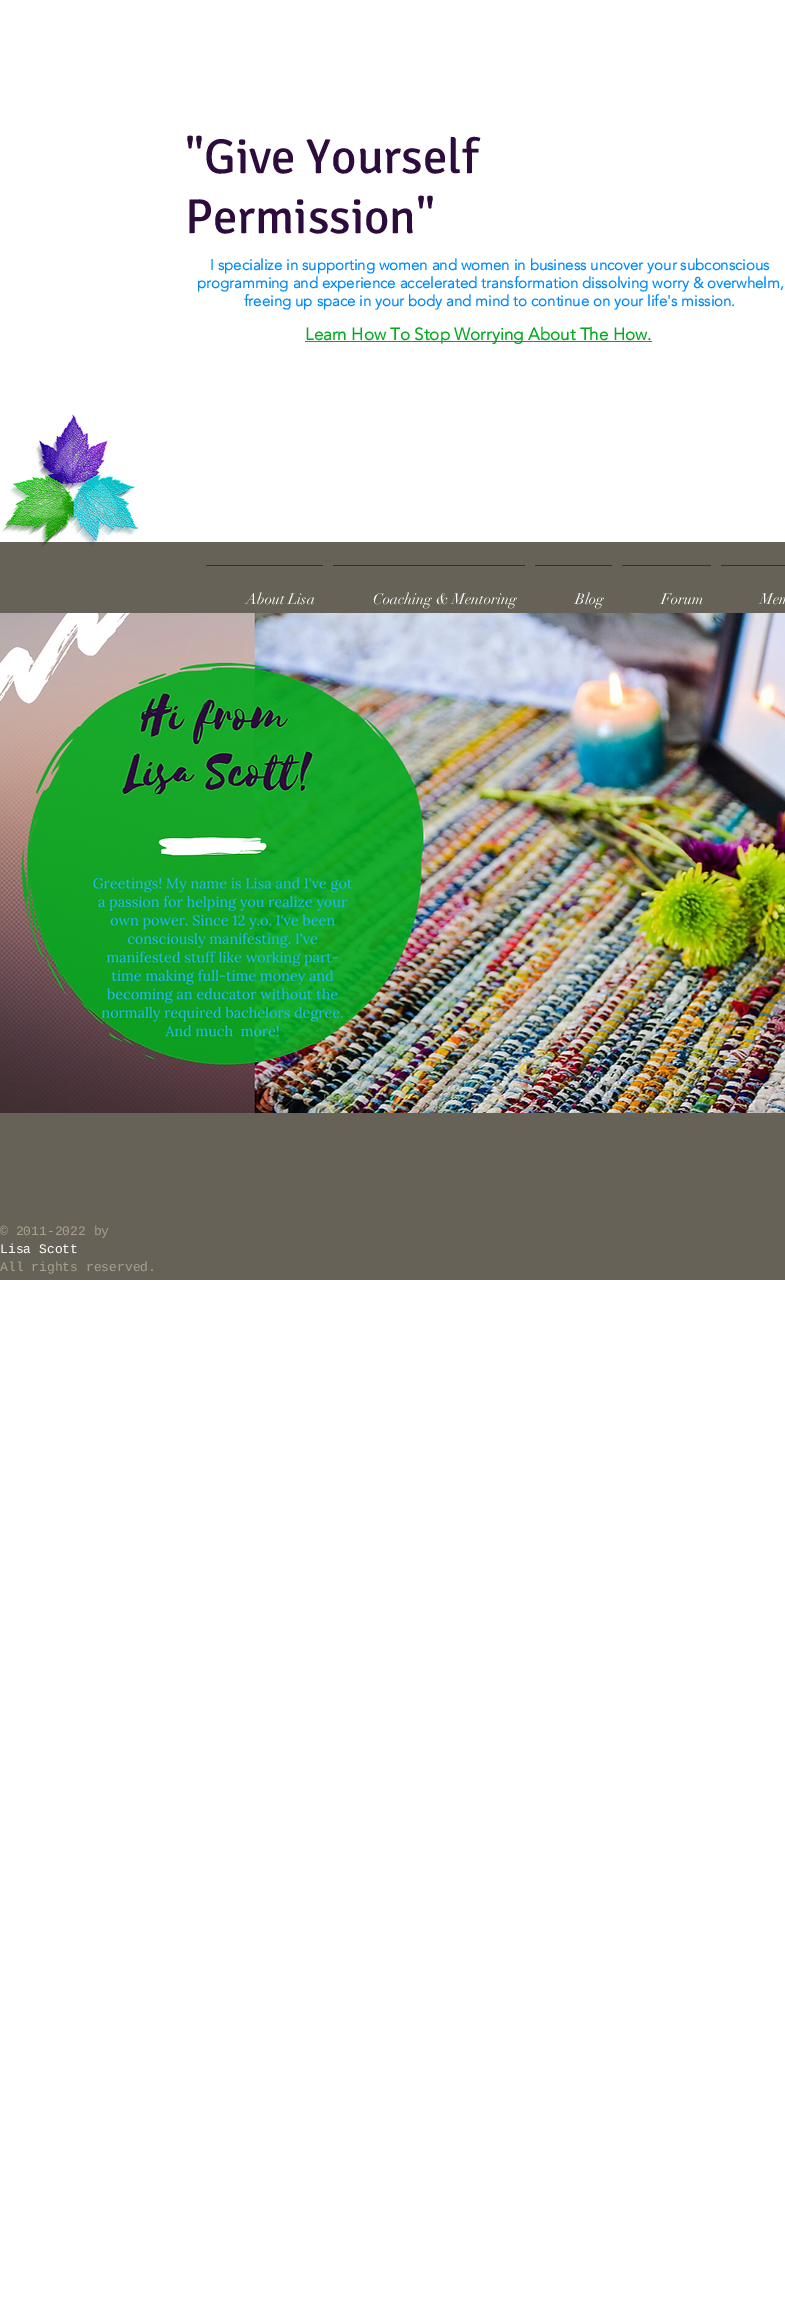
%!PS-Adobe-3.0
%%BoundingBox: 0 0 785 2310
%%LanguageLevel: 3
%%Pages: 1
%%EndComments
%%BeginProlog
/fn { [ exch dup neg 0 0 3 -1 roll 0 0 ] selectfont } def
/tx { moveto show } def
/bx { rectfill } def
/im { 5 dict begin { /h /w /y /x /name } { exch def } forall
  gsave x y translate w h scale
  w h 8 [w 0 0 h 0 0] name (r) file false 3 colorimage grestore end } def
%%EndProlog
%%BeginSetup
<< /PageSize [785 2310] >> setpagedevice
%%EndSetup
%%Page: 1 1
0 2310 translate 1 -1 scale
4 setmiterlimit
1 setgray
0 0 785 2310 bx
/Signika-Regular 49 fn
0.18 0.043 0.239 setrgbcolor
("Give Yourself) 185 173 tx
(Permission") 185 233 tx
/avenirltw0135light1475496-Bold 15 fn
0 0.541 0.988 setrgbcolor
(I specialize in supporting women and women in business uncover your subconscious) 210 270 tx
(programming and experience accelerated transformation dissolving worry & overwhelm,) 197 288 tx
(freeing up space in your body and mind to continue on your life's mission.) 244 306 tx
0.016 0.667 0.118 setrgbcolor
305 341 347 1 bx
/avenirltw0135light1475496-Bold 17 fn
(Learn How To Stop Worrying About The How.) 305 340 tx
0.4 0.384 0.345 setrgbcolor
0 542 785 71 bx
(image0.raw) 2 414 137 133 im
0.2 0.192 0.173 setrgbcolor
206 565 117 1 bx
/didot-Regular 15 fn
1 setgray
(About Lisa) 246 604 tx
0.2 0.192 0.173 setrgbcolor
333 565 192 1 bx
1 setgray
(Coaching & Mentoring) 373 604 tx
0.2 0.192 0.173 setrgbcolor
535 565 77 1 bx
1 setgray
(Blog) 575 604 tx
0.2 0.192 0.173 setrgbcolor
622 565 89 1 bx
1 setgray
(Forum) 661 604 tx
0.2 0.192 0.173 setrgbcolor
721 565 64 1 bx
1 setgray
(Mem) 760 604 tx
(image1.raw) 0 613 785 500 im
0.4 0.384 0.345 setrgbcolor
0 1113 785 167 bx
/LiberationMono-Regular 13 fn
0.655 0.627 0.549 setrgbcolor
(© 2011-2022 by) 0 1235 tx
1 setgray
(Lisa Scott) 0 1253 tx
0.655 0.627 0.549 setrgbcolor
(All rights reserved.) 0 1271 tx
showpage
%%EOF
